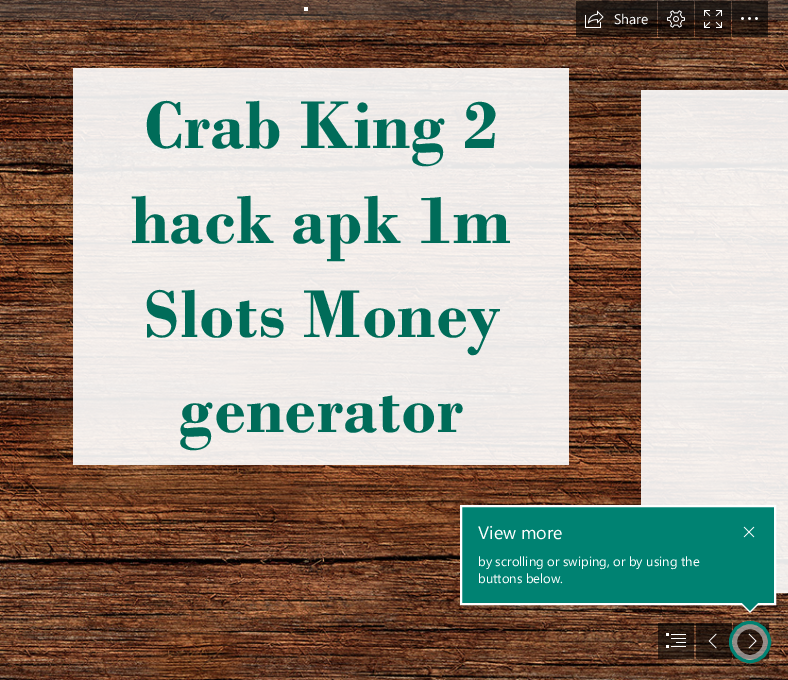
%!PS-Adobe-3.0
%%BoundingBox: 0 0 788 680
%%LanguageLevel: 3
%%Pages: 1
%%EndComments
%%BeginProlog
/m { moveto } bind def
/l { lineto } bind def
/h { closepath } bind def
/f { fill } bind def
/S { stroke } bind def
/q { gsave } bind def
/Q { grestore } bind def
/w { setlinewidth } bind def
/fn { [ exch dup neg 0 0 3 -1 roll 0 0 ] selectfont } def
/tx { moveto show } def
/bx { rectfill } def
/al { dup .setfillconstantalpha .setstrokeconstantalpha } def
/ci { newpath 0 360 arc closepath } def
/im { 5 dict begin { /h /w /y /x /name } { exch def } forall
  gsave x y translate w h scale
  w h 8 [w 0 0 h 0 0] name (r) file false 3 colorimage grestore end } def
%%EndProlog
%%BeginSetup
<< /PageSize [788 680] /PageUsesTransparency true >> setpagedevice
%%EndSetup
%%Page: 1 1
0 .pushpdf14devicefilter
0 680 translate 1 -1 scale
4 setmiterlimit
1 setgray
0 0 788 680 bx
(image4.raw) 0 0 788 680 im
0.5 al
0.251 setgray
0 0 788 20 bx
0.6 al
0 setgray
576 1 81 36 bx
1 al
(image0.raw) 585 10 19 18 im
/SegoeUI-Regular 14 fn
1 setgray
(Share) 614 24 tx
0.6 al
0 setgray
658 1 36 36 bx
1 al
(image1.raw) 667 10 18 18 im
0.6 al
695 1 36 36 bx
1 al
(image2.raw) 704 10 18 18 im
0.6 al
732 1 36 36 bx
1 al
(image3.raw) 741 17 17 3 im
1 setgray
304 7 4 4 bx
0.9 al
73 68 496 397 bx
/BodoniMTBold-Bold 71 fn
1 al
0 0.424 0.349 setrgbcolor
(Crab King 2) 144 148 tx
(hack apk 1m) 131 243 tx
(Slots Money) 143 337 tx
(generator) 178 432 tx
0.9 al
1 setgray
641 90 147 503 bx
1 al
0 0.51 0.447 setrgbcolor
461 506 m 775 506 l 775 604 l 461 604 l h q f Q
1 setgray
2 w
S
/SegoeUI-Regular 18 fn
(View more) 478 539 tx
/SegoeUI-Regular 13 fn
(by scrolling or swiping, or by using the) 478 566 tx
(buttons below.) 478 583 tx
(image5.raw) 743 526 12 12 im
740 603 m 760 603 l 750 613 l h f
0 0.51 0.447 setrgbcolor
742 603 m 758 603 l 750 611 l h f
0.6 al
0 setgray
696 623 36 36 bx
733 623 36 36 bx
1 al
(image8.raw) 748 633 9 16 im
0.5 al
1 setgray
7 w
750 642 16.5 ci S
1 al
0 0.51 0.447 setrgbcolor
3 w
750 642 19.5 ci S
0.6 al
0 setgray
658 623 36 36 bx
1 al
(image6.raw) 666 633 20 15 im
(image7.raw) 708 633 9 16 im
.poppdf14devicefilter showpage
%%EOF
